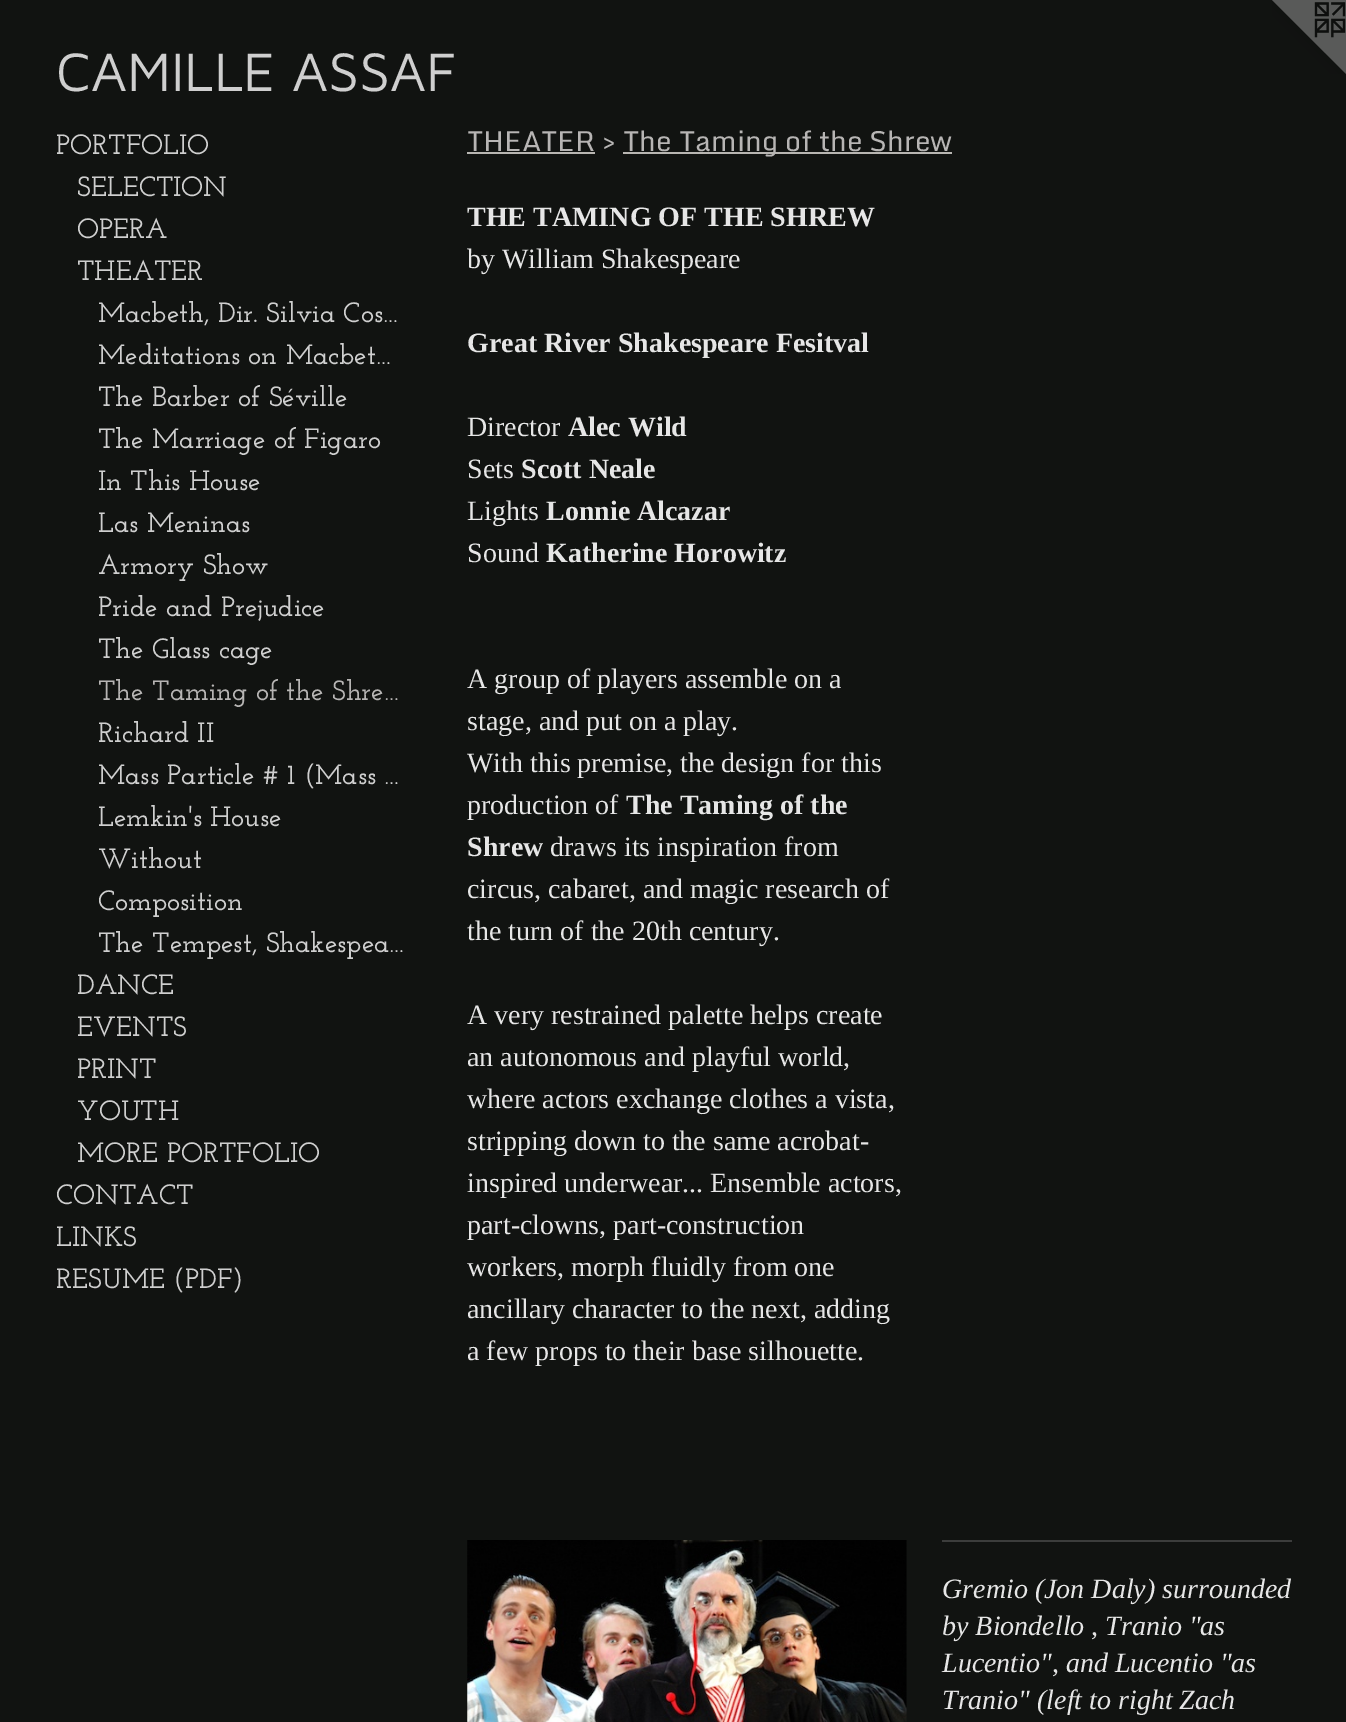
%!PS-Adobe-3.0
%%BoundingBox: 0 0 1346 1722
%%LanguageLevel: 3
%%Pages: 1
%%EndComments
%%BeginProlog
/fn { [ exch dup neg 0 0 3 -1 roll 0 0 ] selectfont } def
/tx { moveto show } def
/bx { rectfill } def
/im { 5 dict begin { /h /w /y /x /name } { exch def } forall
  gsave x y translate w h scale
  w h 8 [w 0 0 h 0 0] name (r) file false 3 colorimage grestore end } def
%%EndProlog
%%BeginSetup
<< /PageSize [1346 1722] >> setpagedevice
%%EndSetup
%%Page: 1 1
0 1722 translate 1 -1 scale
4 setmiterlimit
0.067 0.075 0.067 setrgbcolor
0 0 1346 1722 bx
/MavenPro-Regular 56 fn
0.812 setgray
(CAMILLE ASSAF) 56 91 tx
(image0.raw) 1272 0 74 74 im
/JosefinSlab-Thin 28 fn
(PORTFOLIO) 56 154 tx
(SELECTION) 77 196 tx
(OPERA) 77 238 tx
(THEATER) 77 280 tx
(Macbeth, Dir. Silvia Cos…) 98 322 tx
(Meditations on Macbet…) 98 364 tx
(The Barber of Séville) 98 406 tx
(The Marriage of Figaro) 98 448 tx
(In This House) 98 490 tx
(Las Meninas) 98 532 tx
(Armory Show) 98 574 tx
(Pride and Prejudice) 98 616 tx
(The Glass cage) 98 658 tx
0.718 0.71 0.706 setrgbcolor
(The Taming of the Shre…) 98 700 tx
0.812 setgray
(Richard II) 98 742 tx
(Mass Particle # 1 \(Mass …) 98 784 tx
(Lemkin's House) 98 826 tx
(Without) 98 868 tx
(Composition) 98 910 tx
(The Tempest, Shakespea…) 98 952 tx
(DANCE) 77 994 tx
(EVENTS) 77 1036 tx
(PRINT) 77 1078 tx
(YOUTH) 77 1120 tx
(MORE PORTFOLIO) 77 1162 tx
(CONTACT) 56 1204 tx
(LINKS) 56 1246 tx
(RESUME \(PDF\)) 56 1288 tx
/Monda-Regular 28 fn
0.718 0.71 0.706 setrgbcolor
(THEATER >) 467 151 tx
0.722 0.714 0.698 setrgbcolor
467 152 128 2 bx
623 152 329 2 bx
0.718 0.71 0.706 setrgbcolor
(The Taming of the Shrew) 623 151 tx
/LiberationSerif-Bold 28 fn
0.902 setgray
(THE TAMING OF THE SHREW) 467 226 tx
/LiberationSerif-Regular 28 fn
(by William Shakespeare) 467 268 tx
/LiberationSerif-Bold 28 fn
(Great River Shakespeare Fesitval) 467 352 tx
/LiberationSerif-Regular 28 fn
(Director) 467 436 tx
/LiberationSerif-Bold 28 fn
(Alec Wild) 568 436 tx
/LiberationSerif-Regular 28 fn
(Sets) 467 478 tx
/LiberationSerif-Bold 28 fn
(Scott Neale) 521 478 tx
/LiberationSerif-Regular 28 fn
(Lights) 467 520 tx
/LiberationSerif-Bold 28 fn
(Lonnie Alcazar) 546 520 tx
/LiberationSerif-Regular 28 fn
(Sound) 467 562 tx
/LiberationSerif-Bold 28 fn
(Katherine Horowitz) 546 562 tx
/LiberationSerif-Regular 28 fn
(A group of players assemble on a) 467 688 tx
(stage, and put on a play.) 467 730 tx
(With this premise, the design for this) 467 772 tx
(production of) 467 814 tx
/LiberationSerif-Bold 28 fn
(The Taming of the) 626 814 tx
(Shrew) 467 856 tx
/LiberationSerif-Regular 28 fn
(draws its inspiration from) 550 856 tx
(circus, cabaret, and magic research of) 467 898 tx
(the turn of the 20th century.) 467 940 tx
(A very restrained palette helps create) 467 1024 tx
(an autonomous and playful world,) 467 1066 tx
(where actors exchange clothes a vista,) 467 1108 tx
(stripping down to the same acrobat-) 467 1150 tx
(inspired underwear... Ensemble actors,) 467 1192 tx
(part-clowns, part-construction) 467 1234 tx
(workers, morph fluidly from one) 467 1276 tx
(ancillary character to the next, adding) 467 1318 tx
(a few props to their base silhouette.) 467 1360 tx
(image1.raw) 467 1540 440 182 im
0.235 0.239 0.235 setrgbcolor
942 1540 350 2 bx
/LiberationSerif-Italic 28 fn
0.902 setgray
(Gremio \(Jon Daly\) surrounded) 942 1598 tx
(by Biondello , Tranio "as) 942 1635 tx
(Lucentio", and Lucentio "as) 942 1672 tx
(Tranio" \(left to right Zach) 942 1709 tx
showpage
%%EOF
